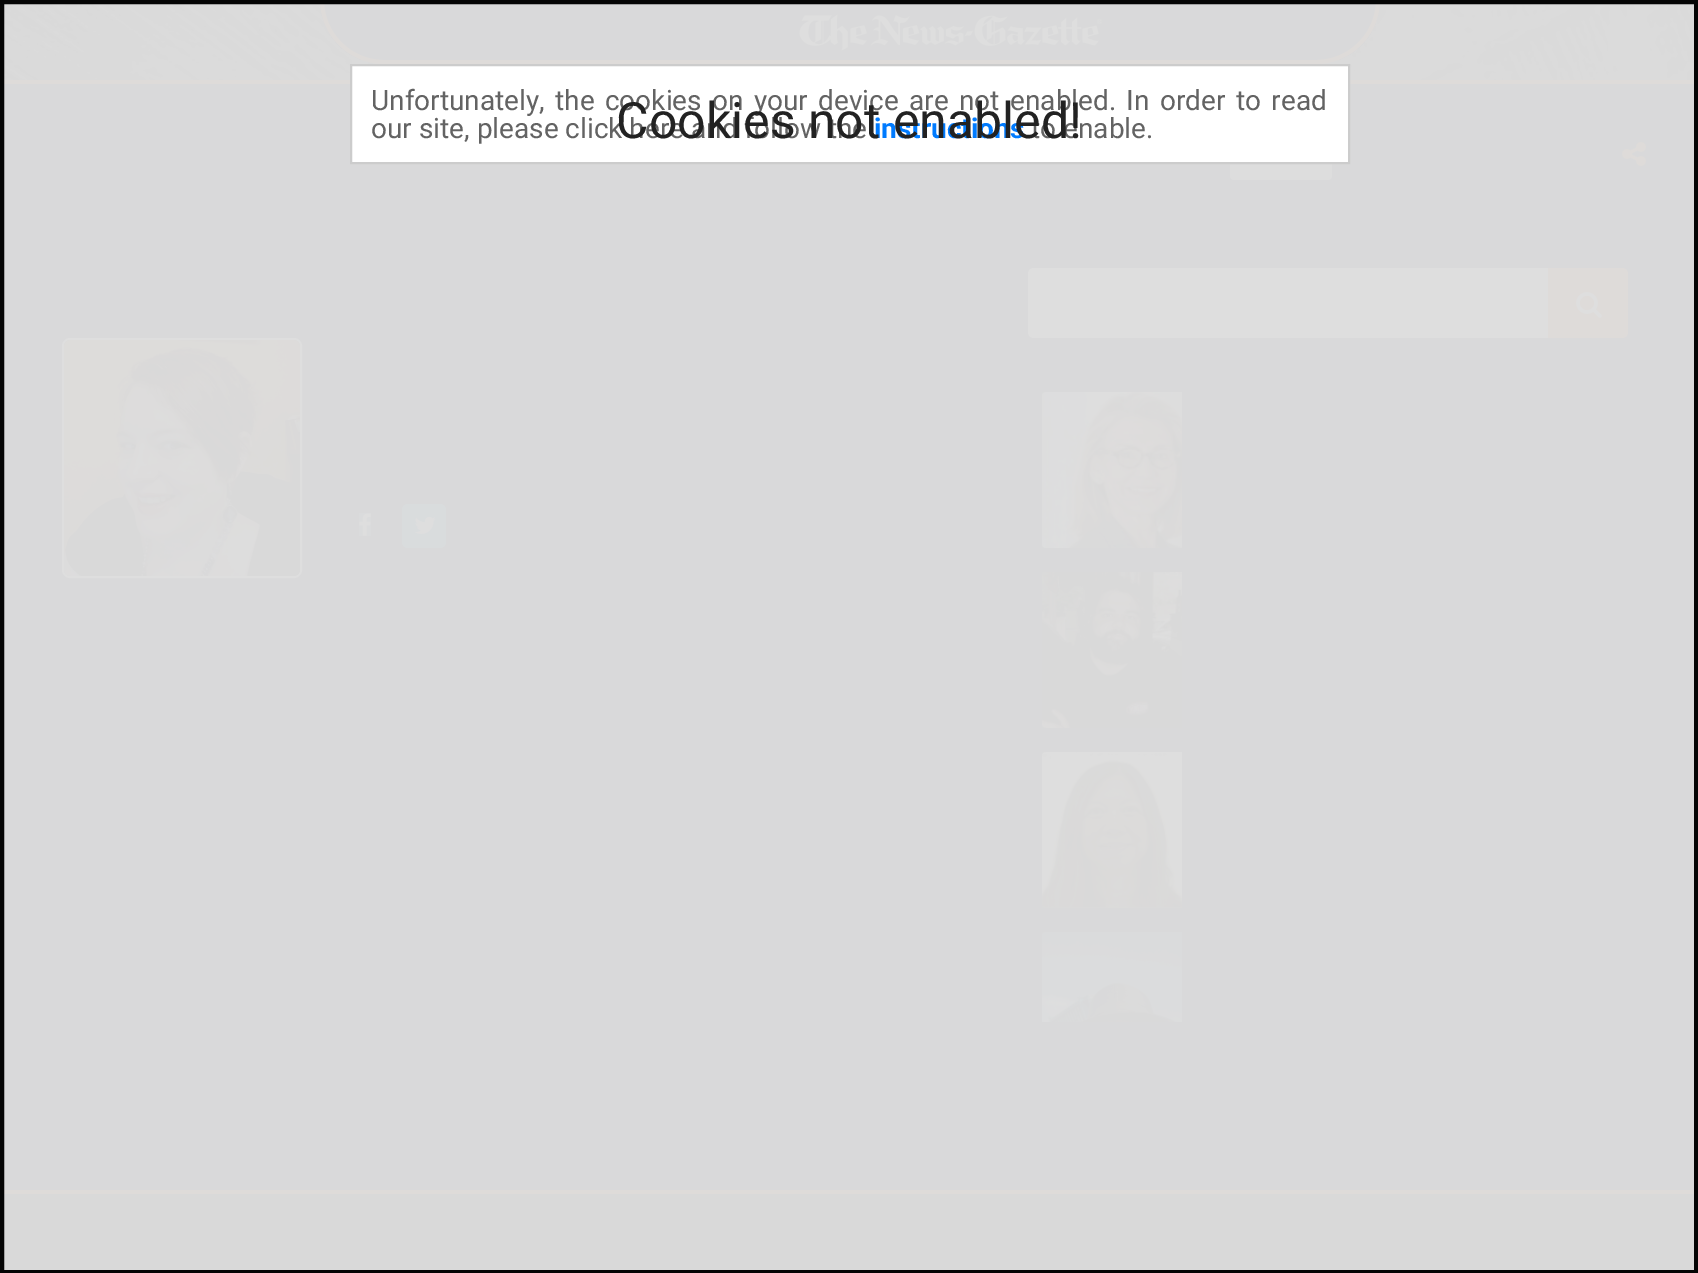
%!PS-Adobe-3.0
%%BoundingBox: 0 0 1698 1273
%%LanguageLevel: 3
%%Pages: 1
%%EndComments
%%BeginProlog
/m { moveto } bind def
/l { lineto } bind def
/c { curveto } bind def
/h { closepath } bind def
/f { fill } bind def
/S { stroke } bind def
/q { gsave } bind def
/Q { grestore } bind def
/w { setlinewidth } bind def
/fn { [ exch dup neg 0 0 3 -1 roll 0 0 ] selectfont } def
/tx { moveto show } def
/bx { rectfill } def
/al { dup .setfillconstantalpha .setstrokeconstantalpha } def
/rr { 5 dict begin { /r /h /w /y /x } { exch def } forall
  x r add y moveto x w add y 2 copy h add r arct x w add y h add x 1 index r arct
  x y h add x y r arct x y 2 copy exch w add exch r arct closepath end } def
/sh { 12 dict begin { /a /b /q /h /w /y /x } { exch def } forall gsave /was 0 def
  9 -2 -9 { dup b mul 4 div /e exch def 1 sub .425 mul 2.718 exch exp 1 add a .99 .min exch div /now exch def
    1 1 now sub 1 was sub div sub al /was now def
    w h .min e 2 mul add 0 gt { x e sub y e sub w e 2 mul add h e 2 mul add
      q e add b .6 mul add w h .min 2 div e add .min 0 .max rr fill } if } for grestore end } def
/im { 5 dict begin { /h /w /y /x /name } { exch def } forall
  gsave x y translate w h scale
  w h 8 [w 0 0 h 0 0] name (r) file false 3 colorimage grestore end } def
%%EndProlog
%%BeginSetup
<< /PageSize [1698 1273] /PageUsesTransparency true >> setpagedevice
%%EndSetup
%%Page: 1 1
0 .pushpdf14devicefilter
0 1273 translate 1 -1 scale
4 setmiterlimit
1 setgray
0 0 1698 1273 bx
(image0.raw) 0 0 1698 80 im
q
320 0 m 1380 0 l 1380 35.5 1351.5 64 1316 64 c 384 64 l 348.5 64 320 35.5 320 0 c h clip newpath
q 320 0 m 1380 0 l 1380 60 l 320 60 l h clip newpath
<< /ShadingType 2 /ColorSpace /DeviceRGB /Coords [850 0 850 60] /Extend [true true] /Function << /FunctionType 2 /Domain [0 1] /C0 [0.851 0.851 0.855] /C1 [0.851 0.851 0.855] /N 1 >> >> shfill Q
Q
0.871 0.859 0.851 setrgbcolor
320 0 m 1380 0 l 1380 35 1351 64 1316 64 c 384 64 l 349 64 320 35 320 0 c h 324 0 m 1376 0 l 1376 33 1349 60 1316 60 c 384 60 l 351 60 324 33 324 0 c h eofill
(image1.raw) 799 14 304 37 im
0.851 setgray
0 1194 1698 79 bx
0 80 1698 1114 0 14 0.6 sh
0 80 1698 1114 0 9 0.6 sh
q 0 84 m 1698 84 l 1698 1190 l 0 1190 l h clip newpath
<< /ShadingType 2 /ColorSpace /DeviceRGB /Coords [343 -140 1355 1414] /Extend [true true] /Function << /FunctionType 2 /Domain [0 1] /C0 [0.851 0.851 0.855] /C1 [0.851 0.851 0.855] /N 1 >> >> shfill Q
0.871 0.859 0.851 setrgbcolor
0 80 1698 4 bx
0 1190 1698 4 bx
0.867 setgray
1230 128 102 52 4 rr f
(image2.raw) 1622 142 24 24 im
0.871 setgray
2 w
63 339 238 238 7 rr S
(image3.raw) 64 340 236 236 im
(image4.raw) 359 513 12 23 im
0.851 0.863 0.867 setrgbcolor
402 504 44 44 6 rr f
(image5.raw) 414 516 22 18 im
0.871 setgray
1034 268 m 1548 268 l 1548 338 l 1034 338 l 1030.5 338 1028 335.5 1028 332 c 1028 274 l 1028 270.5 1030.5 268 1034 268 c h f
0.871 0.859 0.851 setrgbcolor
1548 268 m 1622 268 l 1625.5 268 1628 270.5 1628 274 c 1628 332 l 1628 335.5 1625.5 338 1622 338 c 1548 338 l h f
(image6.raw) 1576 292 26 26 im
(image7.raw) 1042 392 140 156 im
(image8.raw) 1042 572 140 156 im
(image9.raw) 1042 752 140 156 im
(image10.raw) 1042 932 140 90 im
0.98 al
0 setgray
4 w
2 2 1694 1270 rectstroke
1 al
1 setgray
351 65 m 1349 65 l 1349 163 l 351 163 l h q f Q
0.8 setgray
2 w
S
/Roboto-Regular 28 fn
0.388 setgray
371 110 m 3.4 0 32 (Unfortunately, the cookies on your device are not enabled. In order to read) widthshow
(our site, please click here and follow the) 371 138 tx
/Roboto-Bold 28 fn
0 0.482 1 setrgbcolor
(instructions) 874 138 tx
/Roboto-Regular 28 fn
0.388 setgray
(to enable.) 1031 138 tx
/Roboto-Regular 50 fn
0.133 setgray
(Cookies not enabled!) 616 138 tx
.poppdf14devicefilter showpage
%%EOF
